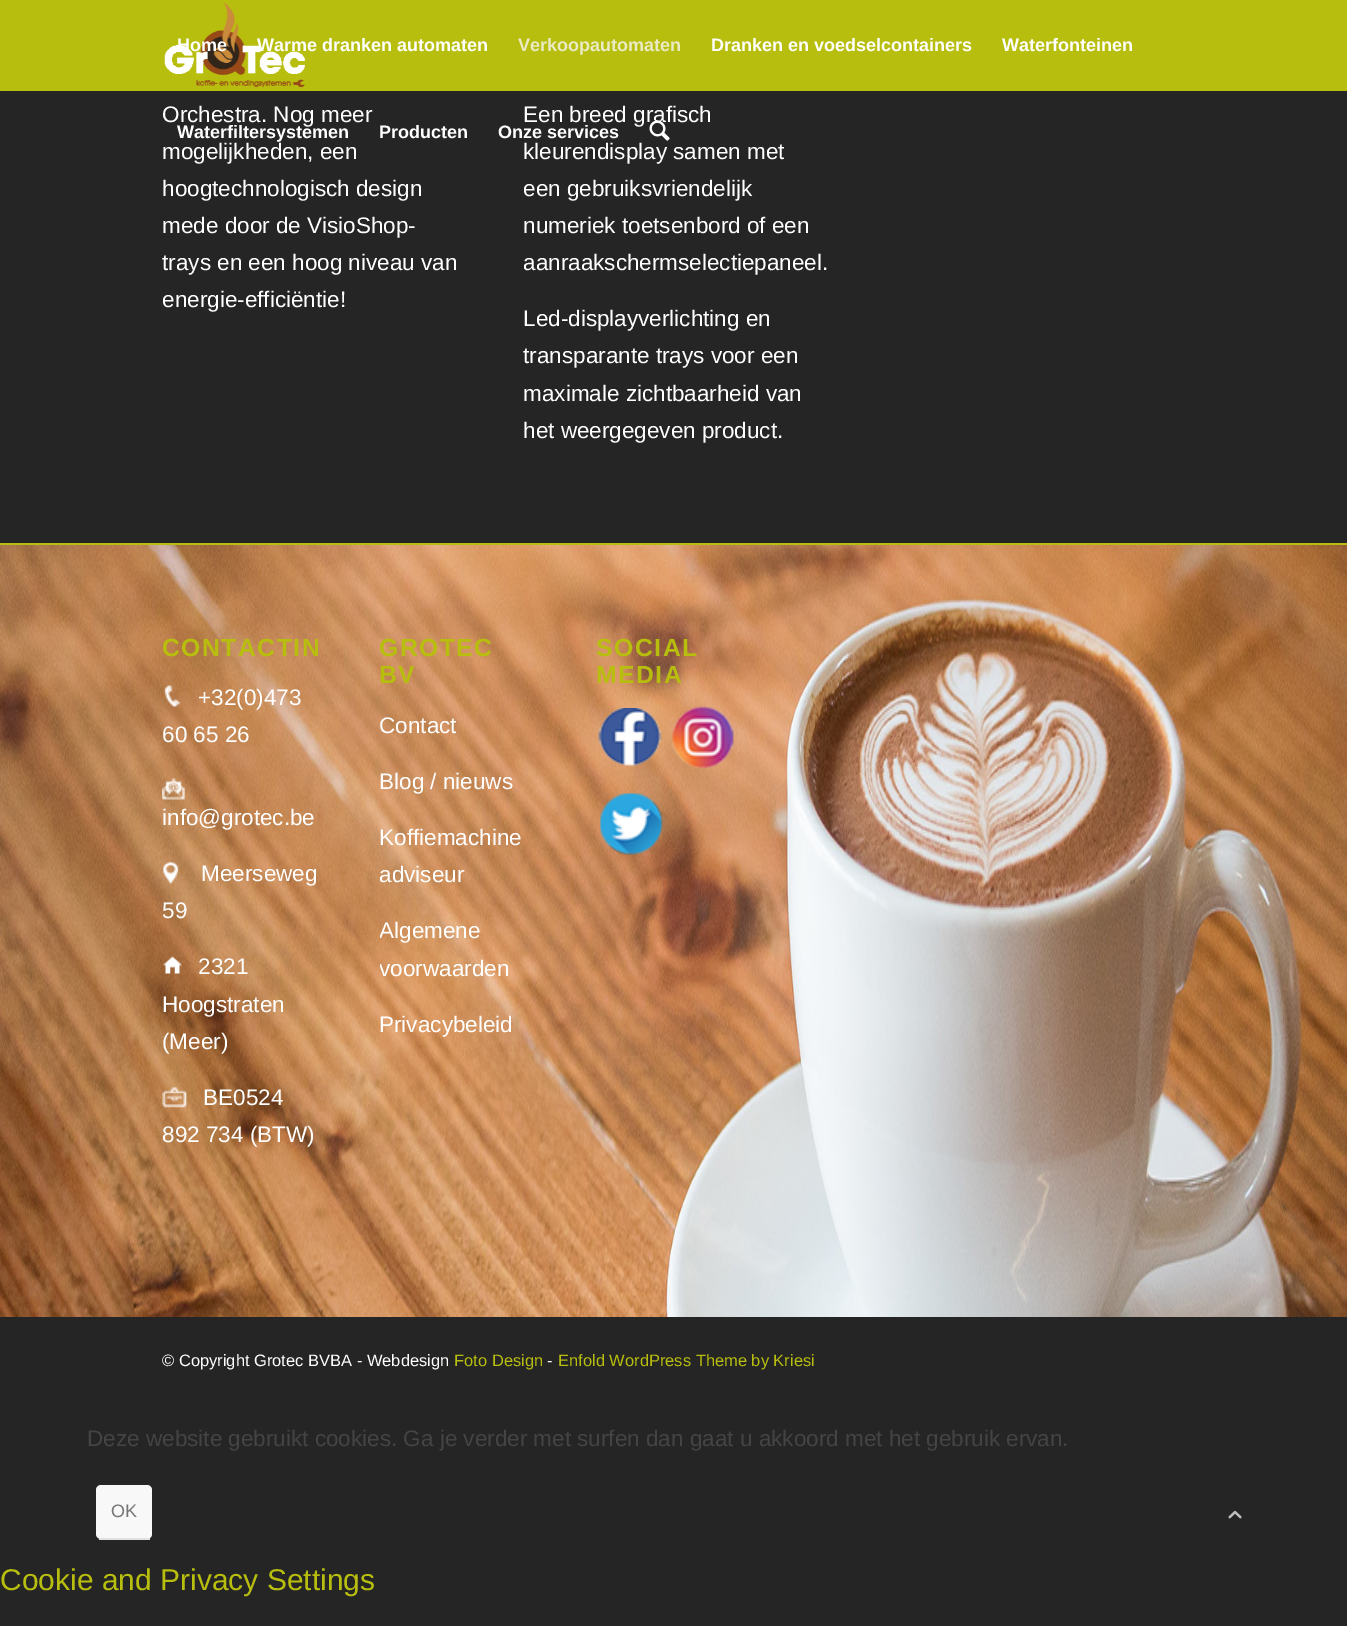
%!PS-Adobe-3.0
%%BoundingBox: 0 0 1347 1626
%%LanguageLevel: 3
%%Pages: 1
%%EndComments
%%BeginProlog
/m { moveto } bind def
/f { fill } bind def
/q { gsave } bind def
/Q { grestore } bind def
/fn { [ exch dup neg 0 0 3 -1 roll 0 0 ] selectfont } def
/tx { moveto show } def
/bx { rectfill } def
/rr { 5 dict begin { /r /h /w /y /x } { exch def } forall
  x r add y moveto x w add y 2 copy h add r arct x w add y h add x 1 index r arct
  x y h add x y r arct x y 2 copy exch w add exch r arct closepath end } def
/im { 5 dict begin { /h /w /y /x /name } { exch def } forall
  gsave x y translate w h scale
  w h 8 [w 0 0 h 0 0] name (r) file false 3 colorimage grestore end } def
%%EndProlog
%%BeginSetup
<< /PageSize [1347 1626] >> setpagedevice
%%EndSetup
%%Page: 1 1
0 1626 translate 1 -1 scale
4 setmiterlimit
0.145 setgray
0 0 1347 1626 bx
0.722 0.745 0.055 setrgbcolor
0 0 1347 91 bx
(image0.raw) 164 3 141 85 im
/LiberationSans-Bold 18 fn
1 setgray
(Home) 177 51 tx
(Warme dranken automaten) 257 51 tx
0.918 0.922 0.773 setrgbcolor
(Verkoopautomaten) 518 51 tx
1 setgray
(Dranken en voedselcontainers) 711 51 tx
(Waterfonteinen) 1002 51 tx
(Waterfiltersystemen) 177 138 tx
(Producten) 379 138 tx
(Onze services) 498 138 tx
/LiberationSans-Regular 22.5 fn
(Een breed grafisch) 523 122 tx
(image1.raw) 649 120 21 21 im
(Orchestra. Nog meer) 162 122 tx
(mogelijkheden, een) 162 159 tx
(hoogtechnologisch design) 162 196 tx
(mede door de VisioShop-) 162 233 tx
(trays en een hoog niveau van) 162 270 tx
(energie-efficiëntie!) 162 307 tx
(kleurendisplay samen met) 523 159 tx
(een gebruiksvriendelijk) 523 196 tx
(numeriek toetsenbord of een) 523 233 tx
(aanraakschermselectiepaneel.) 523 270 tx
(Led-displayverlichting en) 523 326 tx
(transparante trays voor een) 523 363 tx
(maximale zichtbaarheid van) 523 401 tx
(het weergegeven product.) 523 438 tx
(image2.raw) 0 545 1347 772 im
0.722 0.745 0.055 setrgbcolor
0 543 1347 2 bx
q
162 612 156 617 rectclip
/LiberationSans-Bold 24.75 fn
162 656 m 1.5 0 (CONTACTIN) ashow
Q
(image3.raw) 164 685 17 22 im
1 setgray
(+32\(0\)473) 198 705 tx
(60 65 26) 162 742 tx
(image4.raw) 162 778 23 22 im
(info@grotec.be) 162 825 tx
(image5.raw) 163 862 16 22 im
(Meerseweg) 201 881 tx
(59) 162 918 tx
(image6.raw) 163 956 19 18 im
(2321) 198 974 tx
(Hoogstraten) 162 1012 tx
(\(Meer\)) 162 1049 tx
(image7.raw) 162 1087 25 21 im
(BE0524) 203 1105 tx
(892 734 \(BTW\)) 162 1142 tx
q
380 612 154 450 rectclip
/LiberationSans-Bold 24.75 fn
0.722 0.745 0.055 setrgbcolor
379 656 m 1.5 0 (GROTEC) ashow
Q
/LiberationSans-Bold 24.75 fn
0.722 0.745 0.055 setrgbcolor
379 683 m 1.5 0 (BV) ashow
/LiberationSans-Regular 22.5 fn
1 setgray
(Contact) 379 733 tx
(Blog / nieuws) 379 789 tx
(Koffiemachine) 379 845 tx
(adviseur) 379 882 tx
q
380 612 154 450 rectclip
(Algemene) 379 938 tx
(voorwaarden) 379 976 tx
Q
(Privacybeleid) 379 1032 tx
/LiberationSans-Bold 24.75 fn
0.722 0.745 0.055 setrgbcolor
596 656 m 1.5 0 (SOCIAL) ashow
596 683 m 1.5 0 (MEDIA) ashow
(image8.raw) 598 708 64 59 im
(image9.raw) 671 706 63 62 im
(image10.raw) 600 793 67 62 im
/LiberationSans-Regular 16.5 fn
1 setgray
(© Copyright Grotec BVBA - Webdesign) 162 1366 tx
0.722 0.745 0.055 setrgbcolor
(Foto Design) 454 1366 tx
1 setgray
(-) 547 1366 tx
0.722 0.745 0.055 setrgbcolor
(Enfold WordPress Theme by Kriesi) 558 1366 tx
/LiberationSans-Regular 22.5 fn
0.267 setgray
(Deze website gebruikt cookies. Ga je verder met surfen dan gaat u akkoord met het gebruik ervan.) 87 1446 tx
0.973 setgray
96 1485 56 54 5 rr f
0.882 setgray
99 1538 51 2 bx
/LiberationSans-Regular 18 fn
0.467 setgray
(OK) 111 1517 tx
/LiberationSans-Regular 30 fn
0.722 0.745 0.055 setrgbcolor
(Cookie and Privacy Settings) 0 1590 tx
(image11.raw) 1228 1510 14 9 im
showpage
%%EOF
